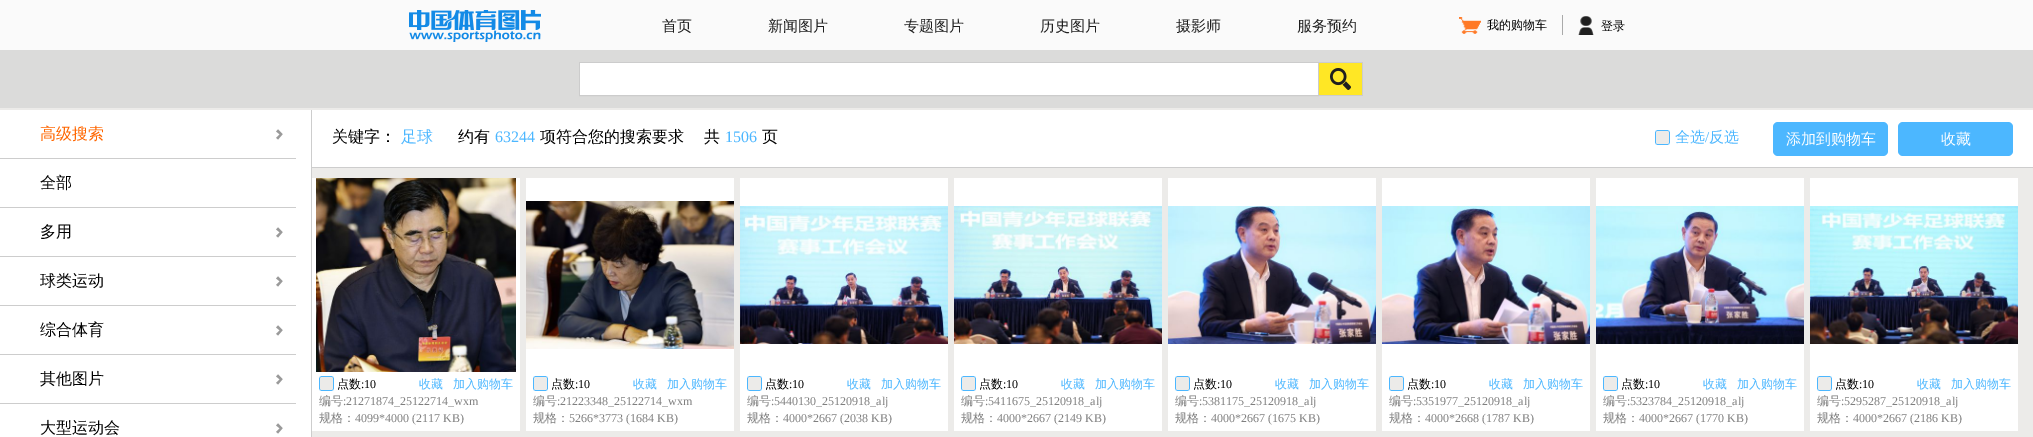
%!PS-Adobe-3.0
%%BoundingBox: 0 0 2033 437
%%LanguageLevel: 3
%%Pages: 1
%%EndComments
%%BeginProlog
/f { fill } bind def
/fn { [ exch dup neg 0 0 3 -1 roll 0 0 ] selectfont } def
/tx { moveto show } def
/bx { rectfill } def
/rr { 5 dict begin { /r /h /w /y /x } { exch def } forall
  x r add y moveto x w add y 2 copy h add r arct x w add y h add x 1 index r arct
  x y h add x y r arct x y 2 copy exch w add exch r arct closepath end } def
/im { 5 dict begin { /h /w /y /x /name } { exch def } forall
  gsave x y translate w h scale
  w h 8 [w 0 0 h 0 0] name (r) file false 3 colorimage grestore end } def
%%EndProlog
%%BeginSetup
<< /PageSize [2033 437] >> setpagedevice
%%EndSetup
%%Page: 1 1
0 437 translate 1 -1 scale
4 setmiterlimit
0.925 0.922 0.914 setrgbcolor
0 0 2033 437 bx
0.98 setgray
0 0 2033 50 bx
(image0.raw) 409 10 132 32 im
/WenQuanYiZenHei-Medium 15 fn
0.122 setgray
(首页) 662 31 tx
(新闻图片) 768 31 tx
(专题图片) 904 31 tx
(历史图片) 1040 31 tx
(摄影师) 1176 31 tx
(服务预约) 1297 31 tx
(image1.raw) 1459 17 22 17 im
/WenQuanYiZenHei-Medium 12 fn
0 setgray
(我的购物车) 1487 29 tx
0.667 setgray
1562 15 1 20 bx
(image2.raw) 1578 16 16 19 im
0 setgray
(登录) 1601 30 tx
0.859 0.859 0.855 setrgbcolor
0 50 2033 58 bx
0.8 setgray
579.5 62.5 739 33 rectstroke
1 setgray
580 63 738 32 bx
0.8 setgray
1319 62 44 1 bx
1362 62 1 34 bx
1319 95 44 1 bx
1 0.906 0.145 setrgbcolor
1319 63 43 32 bx
(image3.raw) 1330 68 21 22 im
1 setgray
0 110 311 327 bx
0.804 setgray
311 110 1 327 bx
0 158 296 1 bx
/WenQuanYiZenHei-Medium 16 fn
1 0.4 0 setrgbcolor
(高级搜索) 40 139 tx
(image4.raw) 276 129 7 11 im
0.804 setgray
0 207 296 1 bx
0 setgray
(全部) 40 188 tx
0.804 setgray
0 256 296 1 bx
0 setgray
(多用) 40 237 tx
(image4.raw) 276 227 7 11 im
0.804 setgray
0 305 296 1 bx
0 setgray
(球类运动) 40 286 tx
(image4.raw) 276 276 7 11 im
0.804 setgray
0 354 296 1 bx
0 setgray
(综合体育) 40 335 tx
(image4.raw) 276 325 7 11 im
0.804 setgray
0 403 296 1 bx
0 setgray
(其他图片) 40 384 tx
(image4.raw) 276 374 7 11 im
(大型运动会) 40 433 tx
(image4.raw) 276 423 7 11 im
1 setgray
312 110 1721 57 bx
0.804 setgray
312 167 1721 1 bx
0 setgray
(关键字：) 332 142 tx
0.298 0.718 1 setrgbcolor
(足球) 401 142 tx
0 setgray
(约有) 458 142 tx
/LiberationSerif-Regular 16 fn
0.298 0.718 1 setrgbcolor
(63244) 495 142 tx
/WenQuanYiZenHei-Medium 16 fn
0 setgray
(项符合您的搜索要求) 540 142 tx
(共) 704 142 tx
/LiberationSerif-Regular 16 fn
0.298 0.718 1 setrgbcolor
(1506) 725 142 tx
/WenQuanYiZenHei-Medium 16 fn
0 setgray
(页) 762 142 tx
(image5.raw) 1655 130 15 15 im
/WenQuanYiZenHei-Medium 15 fn
0.298 0.718 1 setrgbcolor
(全选) 1675 142 tx
/LiberationSerif-Regular 15 fn
(/) 1705 142 tx
/WenQuanYiZenHei-Medium 15 fn
(反选) 1709 142 tx
1773 122 115 34 5 rr f
1 setgray
(添加到购物车) 1786 144 tx
0.298 0.718 1 setrgbcolor
1898 122 115 34 5 rr f
1 setgray
(收藏) 1941 144 tx
312 178 208 253 bx
(image6.raw) 316 178 200 194 im
(image5.raw) 319 376 15 15 im
/WenQuanYiZenHei-Medium 12 fn
0 setgray
(点数) 337 388 tx
/LiberationSerif-Regular 12 fn
(:10) 361 388 tx
/WenQuanYiZenHei-Medium 12 fn
0.298 0.718 1 setrgbcolor
(收藏) 419 388 tx
(加入购物车) 453 388 tx
0.498 setgray
(编号) 319 405 tx
/LiberationSerif-Regular 12 fn
(:21271874_25122714_wxm) 343 405 tx
/WenQuanYiZenHei-Medium 12 fn
(规格：) 319 422 tx
/LiberationSerif-Regular 12 fn
(4099*4000 \(2117 KB\)) 355 422 tx
1 setgray
526 178 208 253 bx
(image7.raw) 526 201 208 148 im
(image5.raw) 533 376 15 15 im
/WenQuanYiZenHei-Medium 12 fn
0 setgray
(点数) 551 388 tx
/LiberationSerif-Regular 12 fn
(:10) 575 388 tx
/WenQuanYiZenHei-Medium 12 fn
0.298 0.718 1 setrgbcolor
(收藏) 633 388 tx
(加入购物车) 667 388 tx
0.498 setgray
(编号) 533 405 tx
/LiberationSerif-Regular 12 fn
(:21223348_25122714_wxm) 557 405 tx
/WenQuanYiZenHei-Medium 12 fn
(规格：) 533 422 tx
/LiberationSerif-Regular 12 fn
(5266*3773 \(1684 KB\)) 569 422 tx
1 setgray
740 178 208 253 bx
(image8.raw) 740 206 208 138 im
(image5.raw) 747 376 15 15 im
/WenQuanYiZenHei-Medium 12 fn
0 setgray
(点数) 765 388 tx
/LiberationSerif-Regular 12 fn
(:10) 789 388 tx
/WenQuanYiZenHei-Medium 12 fn
0.298 0.718 1 setrgbcolor
(收藏) 847 388 tx
(加入购物车) 881 388 tx
0.498 setgray
(编号) 747 405 tx
/LiberationSerif-Regular 12 fn
(:5440130_25120918_alj) 771 405 tx
/WenQuanYiZenHei-Medium 12 fn
(规格：) 747 422 tx
/LiberationSerif-Regular 12 fn
(4000*2667 \(2038 KB\)) 783 422 tx
1 setgray
954 178 208 253 bx
(image9.raw) 954 206 208 138 im
(image5.raw) 961 376 15 15 im
/WenQuanYiZenHei-Medium 12 fn
0 setgray
(点数) 979 388 tx
/LiberationSerif-Regular 12 fn
(:10) 1003 388 tx
/WenQuanYiZenHei-Medium 12 fn
0.298 0.718 1 setrgbcolor
(收藏) 1061 388 tx
(加入购物车) 1095 388 tx
0.498 setgray
(编号) 961 405 tx
/LiberationSerif-Regular 12 fn
(:5411675_25120918_alj) 985 405 tx
/WenQuanYiZenHei-Medium 12 fn
(规格：) 961 422 tx
/LiberationSerif-Regular 12 fn
(4000*2667 \(2149 KB\)) 997 422 tx
1 setgray
1168 178 208 253 bx
(image10.raw) 1168 206 208 138 im
(image5.raw) 1175 376 15 15 im
/WenQuanYiZenHei-Medium 12 fn
0 setgray
(点数) 1193 388 tx
/LiberationSerif-Regular 12 fn
(:10) 1217 388 tx
/WenQuanYiZenHei-Medium 12 fn
0.298 0.718 1 setrgbcolor
(收藏) 1275 388 tx
(加入购物车) 1309 388 tx
0.498 setgray
(编号) 1175 405 tx
/LiberationSerif-Regular 12 fn
(:5381175_25120918_alj) 1199 405 tx
/WenQuanYiZenHei-Medium 12 fn
(规格：) 1175 422 tx
/LiberationSerif-Regular 12 fn
(4000*2667 \(1675 KB\)) 1211 422 tx
1 setgray
1382 178 208 253 bx
(image11.raw) 1382 206 208 138 im
(image5.raw) 1389 376 15 15 im
/WenQuanYiZenHei-Medium 12 fn
0 setgray
(点数) 1407 388 tx
/LiberationSerif-Regular 12 fn
(:10) 1431 388 tx
/WenQuanYiZenHei-Medium 12 fn
0.298 0.718 1 setrgbcolor
(收藏) 1489 388 tx
(加入购物车) 1523 388 tx
0.498 setgray
(编号) 1389 405 tx
/LiberationSerif-Regular 12 fn
(:5351977_25120918_alj) 1413 405 tx
/WenQuanYiZenHei-Medium 12 fn
(规格：) 1389 422 tx
/LiberationSerif-Regular 12 fn
(4000*2668 \(1787 KB\)) 1425 422 tx
1 setgray
1596 178 208 253 bx
(image12.raw) 1596 206 208 138 im
(image5.raw) 1603 376 15 15 im
/WenQuanYiZenHei-Medium 12 fn
0 setgray
(点数) 1621 388 tx
/LiberationSerif-Regular 12 fn
(:10) 1645 388 tx
/WenQuanYiZenHei-Medium 12 fn
0.298 0.718 1 setrgbcolor
(收藏) 1703 388 tx
(加入购物车) 1737 388 tx
0.498 setgray
(编号) 1603 405 tx
/LiberationSerif-Regular 12 fn
(:5323784_25120918_alj) 1627 405 tx
/WenQuanYiZenHei-Medium 12 fn
(规格：) 1603 422 tx
/LiberationSerif-Regular 12 fn
(4000*2667 \(1770 KB\)) 1639 422 tx
1 setgray
1810 178 208 253 bx
(image13.raw) 1810 206 208 138 im
(image5.raw) 1817 376 15 15 im
/WenQuanYiZenHei-Medium 12 fn
0 setgray
(点数) 1835 388 tx
/LiberationSerif-Regular 12 fn
(:10) 1859 388 tx
/WenQuanYiZenHei-Medium 12 fn
0.298 0.718 1 setrgbcolor
(收藏) 1917 388 tx
(加入购物车) 1951 388 tx
0.498 setgray
(编号) 1817 405 tx
/LiberationSerif-Regular 12 fn
(:5295287_25120918_alj) 1841 405 tx
/WenQuanYiZenHei-Medium 12 fn
(规格：) 1817 422 tx
/LiberationSerif-Regular 12 fn
(4000*2667 \(2186 KB\)) 1853 422 tx
showpage
%%EOF
